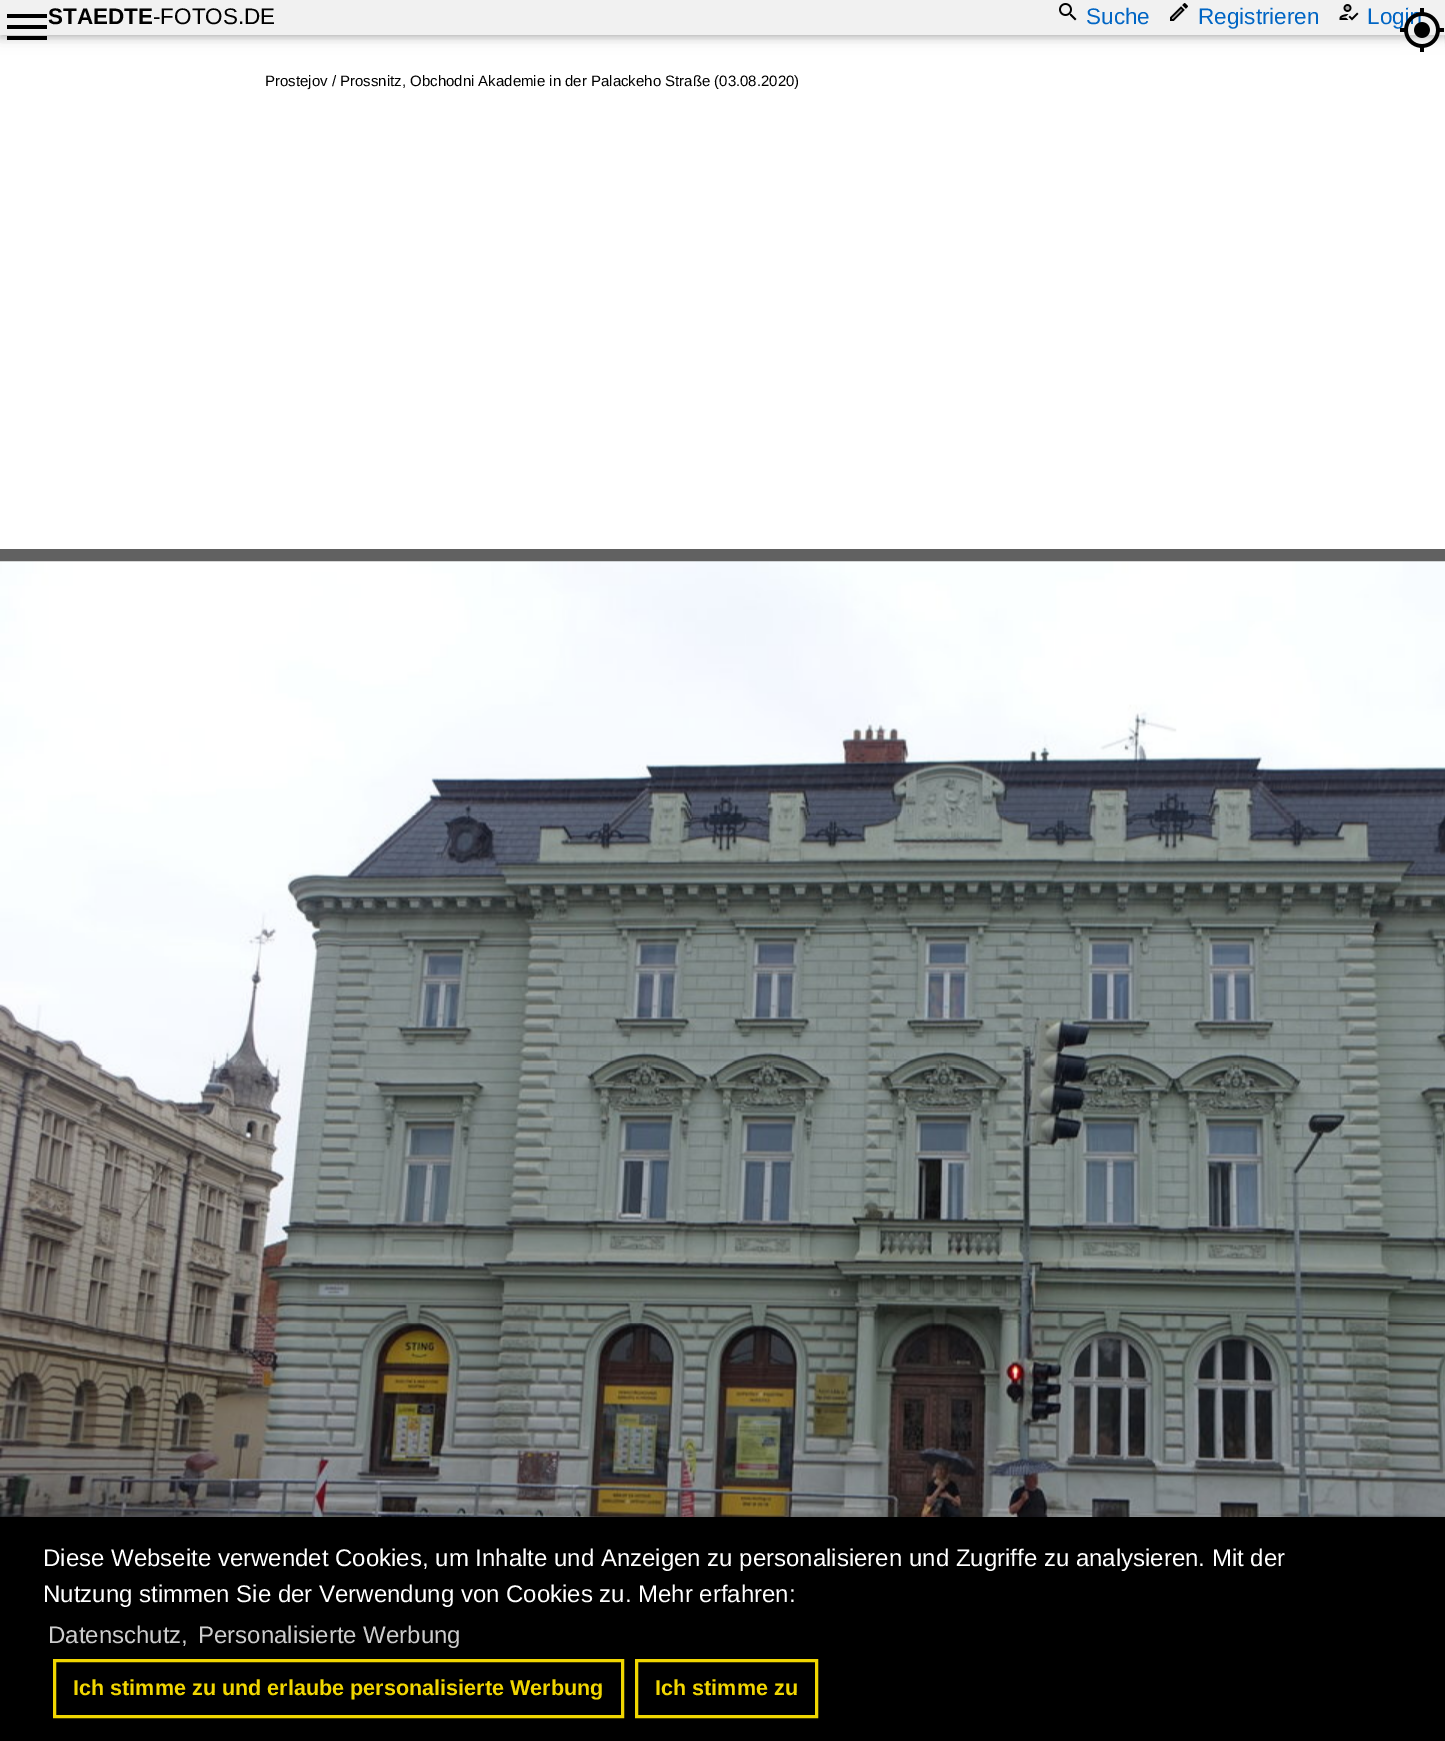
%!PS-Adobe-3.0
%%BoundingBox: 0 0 1445 1741
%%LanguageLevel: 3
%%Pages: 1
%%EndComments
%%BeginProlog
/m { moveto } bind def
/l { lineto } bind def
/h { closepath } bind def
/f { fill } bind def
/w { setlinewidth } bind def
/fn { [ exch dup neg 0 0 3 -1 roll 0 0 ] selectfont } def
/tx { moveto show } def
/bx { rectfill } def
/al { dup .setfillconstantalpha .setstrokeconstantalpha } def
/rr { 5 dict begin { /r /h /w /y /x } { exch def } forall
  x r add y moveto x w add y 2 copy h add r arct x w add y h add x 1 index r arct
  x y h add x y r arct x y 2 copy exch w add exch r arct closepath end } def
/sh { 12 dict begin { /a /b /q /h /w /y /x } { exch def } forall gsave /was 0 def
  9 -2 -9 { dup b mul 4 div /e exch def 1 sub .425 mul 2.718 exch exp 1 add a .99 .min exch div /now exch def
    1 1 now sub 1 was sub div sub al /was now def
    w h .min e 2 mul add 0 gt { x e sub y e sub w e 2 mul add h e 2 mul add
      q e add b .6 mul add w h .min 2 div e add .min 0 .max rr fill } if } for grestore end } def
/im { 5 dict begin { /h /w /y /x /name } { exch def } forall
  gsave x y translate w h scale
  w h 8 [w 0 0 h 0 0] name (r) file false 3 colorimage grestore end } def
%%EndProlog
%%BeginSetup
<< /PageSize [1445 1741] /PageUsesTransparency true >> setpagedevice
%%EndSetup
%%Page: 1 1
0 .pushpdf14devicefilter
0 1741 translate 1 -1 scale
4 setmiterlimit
1 setgray
0 0 1445 1741 bx
0 setgray
0 3 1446 35 0 7.5 0.12 sh
0 3 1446 35 0 3 0.16 sh
0.945 setgray
0 0 1445 35 bx
0 setgray
7 40 m 47 40 l 47 36 l 7 36 l h 7 29 m 47 29 l 47 25 l 7 25 l h 7 14 m 7 18 l 47 18 l 47 14 l h f
/LiberationSans-Bold 22.5 fn
(STAEDTE) 48 24 tx
/LiberationSans-Regular 22.5 fn
(-FOTOS.DE) 153 24 tx
(image0.raw) 1059 3 18 18 im
0 0.396 0.769 setrgbcolor
(Suche) 1086 24 tx
(image1.raw) 1170 3 18 18 im
(Registrieren) 1198 24 tx
(image2.raw) 1339 4 20 17 im
(Login) 1367 24 tx
(image3.raw) 1400 8 44 44 im
/LiberationSans-Regular 15 fn
0 setgray
(Prostejov / Prossnitz, Obchodni Akademie in der Palackeho Straße \(03.08.2020\)) 265 86 tx
0.38 setgray
0 549 1445 13 bx
(image4.raw) 0 561 1445 956 im
0 setgray
0 1517 1445 224 bx
/LiberationSans-Regular 24 fn
1 setgray
(Diese Webseite verwendet Cookies, um Inhalte und Anzeigen zu personalisieren und Zugriffe zu analysieren. Mit der) 43 1566 tx
(Nutzung stimmen Sie der Verwendung von Cookies zu. Mehr erfahren:) 43 1602 tx
0.8 setgray
(Datenschutz,) 48 1643 tx
(Personalisierte Werbung) 198 1643 tx
0.945 0.839 0 setrgbcolor
3 w
54.5 1660.5 568 56 rectstroke
/LiberationSans-Bold 21.6 fn
(Ich stimme zu und erlaube personalisierte Werbung) 73 1695 tx
636.5 1660.5 180 56 rectstroke
(Ich stimme zu) 655 1695 tx
.poppdf14devicefilter showpage
%%EOF
